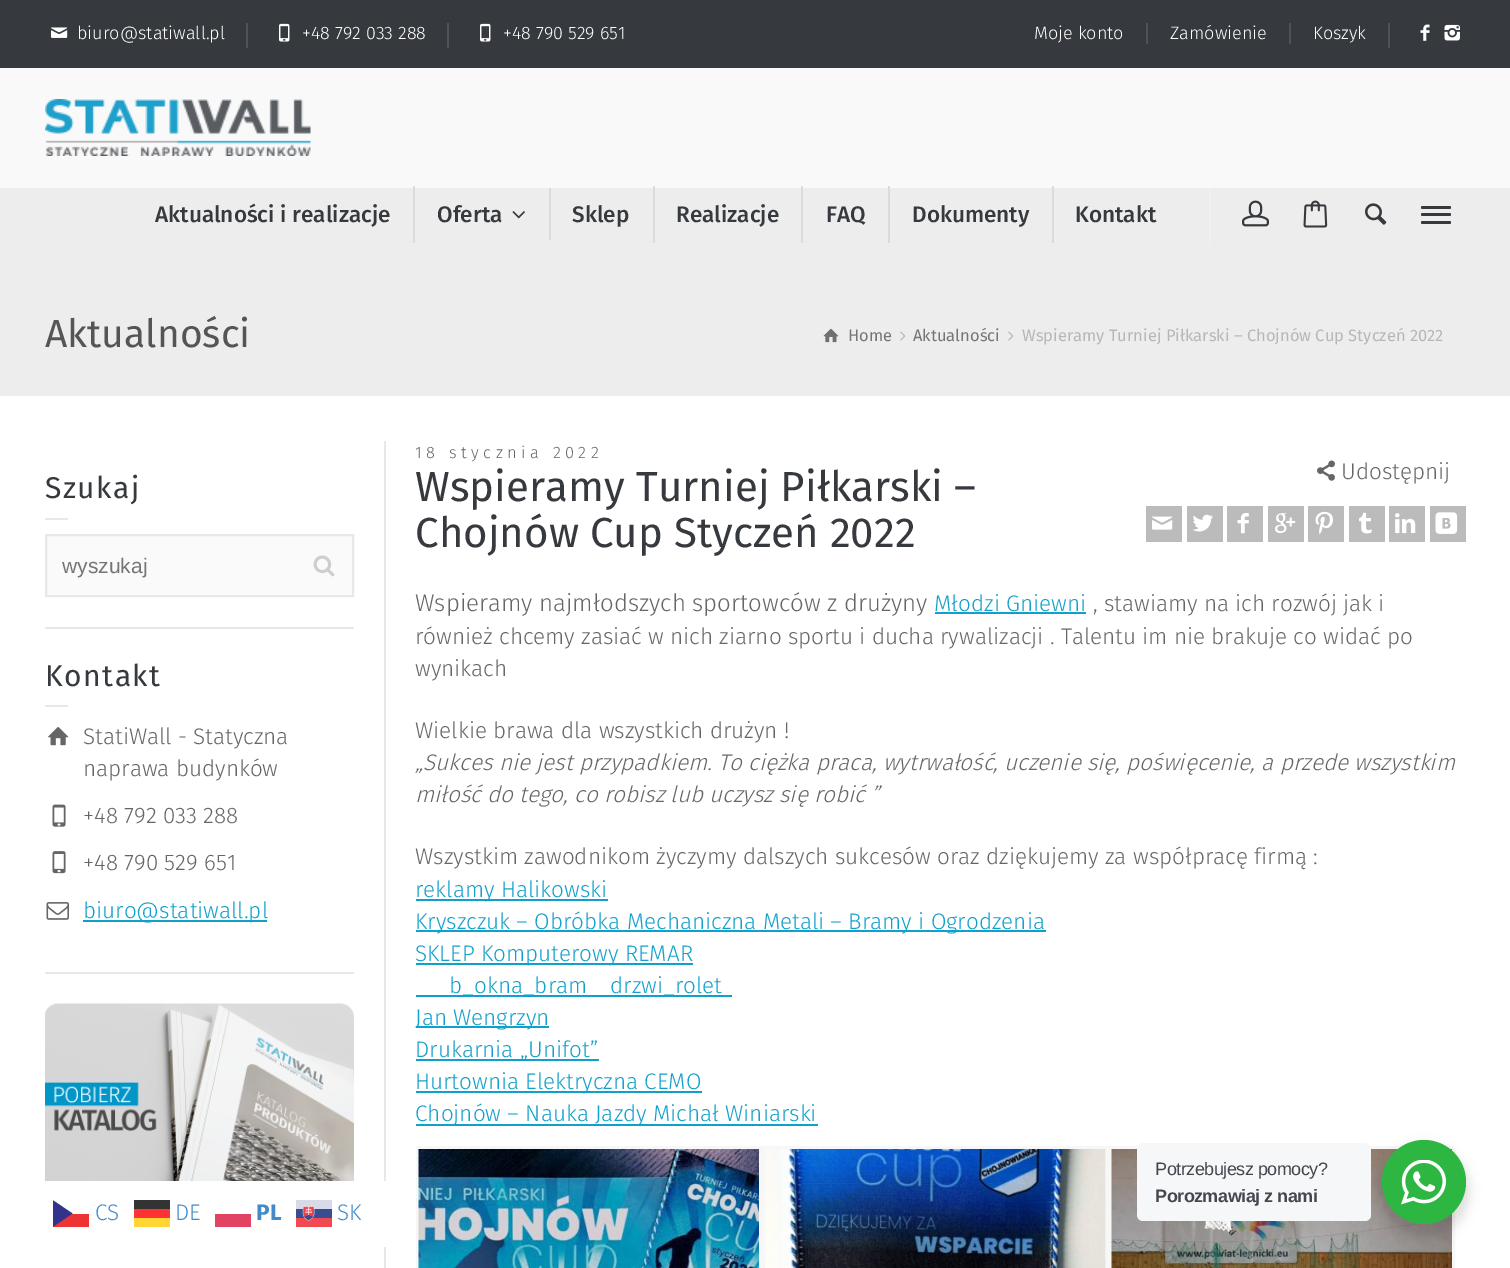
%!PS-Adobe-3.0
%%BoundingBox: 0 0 1510 1268
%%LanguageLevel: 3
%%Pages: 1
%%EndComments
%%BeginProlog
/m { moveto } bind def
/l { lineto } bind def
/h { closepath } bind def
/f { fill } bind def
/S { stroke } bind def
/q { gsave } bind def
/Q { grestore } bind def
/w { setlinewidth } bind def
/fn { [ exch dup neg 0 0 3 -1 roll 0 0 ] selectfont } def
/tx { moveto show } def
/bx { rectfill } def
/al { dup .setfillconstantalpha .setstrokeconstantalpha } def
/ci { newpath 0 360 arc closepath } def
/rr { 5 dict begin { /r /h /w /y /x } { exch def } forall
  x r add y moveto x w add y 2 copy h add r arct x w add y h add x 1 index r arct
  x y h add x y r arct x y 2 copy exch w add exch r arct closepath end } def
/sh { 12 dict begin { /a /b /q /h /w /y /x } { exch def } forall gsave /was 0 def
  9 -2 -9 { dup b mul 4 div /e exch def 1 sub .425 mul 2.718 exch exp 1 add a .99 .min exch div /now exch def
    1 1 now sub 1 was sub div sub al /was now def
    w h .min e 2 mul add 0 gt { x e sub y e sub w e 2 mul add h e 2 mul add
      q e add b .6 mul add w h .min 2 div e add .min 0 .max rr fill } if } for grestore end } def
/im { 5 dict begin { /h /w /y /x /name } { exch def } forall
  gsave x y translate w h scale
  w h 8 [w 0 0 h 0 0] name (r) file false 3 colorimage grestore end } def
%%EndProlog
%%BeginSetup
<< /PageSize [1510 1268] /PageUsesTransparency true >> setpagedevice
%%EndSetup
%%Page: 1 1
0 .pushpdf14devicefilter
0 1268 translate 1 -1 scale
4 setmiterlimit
0.929 setgray
0 0 1510 1268 bx
0.941 setgray
1209 185 2 60 bx
0.212 0.224 0.239 setrgbcolor
0 0 1510 68 bx
(image0.raw) 51 27 17 11 im
/FiraSans-Light 18 fn
1 setgray
(biuro@statiwall.pl) 77 39 tx
0.31 0.322 0.337 setrgbcolor
246 23 2 25 bx
(image1.raw) 279 23 11 19 im
1 setgray
(+48 792 033 288) 302 39 tx
0.31 0.322 0.337 setrgbcolor
447 23 2 25 bx
(image1.raw) 480 23 11 19 im
1 setgray
(+48 790 529 651) 503 39 tx
(Moje konto) 1034 39 tx
0.31 0.322 0.337 setrgbcolor
1146 23 2 21 bx
1 setgray
(Zamówienie) 1170 39 tx
0.31 0.322 0.337 setrgbcolor
1289 23 2 21 bx
1 setgray
(Koszyk) 1313 39 tx
0.31 0.322 0.337 setrgbcolor
1388 23 2 25 bx
(image2.raw) 1420 24 10 17 im
(image3.raw) 1444 24 16 17 im
0.976 setgray
0 68 1510 120 bx
(image4.raw) 45 99 266 57 im
/FiraSans-Medium 22.5 fn
0.212 0.224 0.239 setrgbcolor
(Aktualności i realizacje) 155 222 tx
0.859 setgray
413 186 2 57 bx
0.212 0.224 0.239 setrgbcolor
(Oferta) 437 222 tx
0.859 setgray
549 188 2 52 bx
(image5.raw) 512 211 13 8 im
0.212 0.224 0.239 setrgbcolor
(Sklep) 572 222 tx
0.859 setgray
653 186 2 57 bx
0.212 0.224 0.239 setrgbcolor
(Realizacje) 676 222 tx
0.859 setgray
801 186 2 57 bx
0.212 0.224 0.239 setrgbcolor
(FAQ) 826 222 tx
0.859 setgray
888 186 2 57 bx
0.212 0.224 0.239 setrgbcolor
(Dokumenty) 912 222 tx
0.859 setgray
1052 186 2 57 bx
0.212 0.224 0.239 setrgbcolor
(Kontakt) 1075 222 tx
(image6.raw) 1242 200 27 27 im
(image7.raw) 1303 200 25 28 im
(image8.raw) 1365 203 22 22 im
1421 206 30 3 1.5 rr f
1421 213 30 3 1.5 rr f
1421 221 30 3 1.5 rr f
/FiraSans-Regular 39 fn
0.333 setgray
(Aktualności) 45 347 tx
(image9.raw) 823 328 16 15 im
/FiraSans-Regular 16.5 fn
0.459 setgray
(Home) 848 341 tx
(image10.raw) 900 331 6 10 im
(Aktualności) 913 341 tx
(image10.raw) 1008 331 6 10 im
0.718 setgray
(Wspieramy Turniej Piłkarski – Chojnów Cup Styczeń 2022) 1022 341 tx
1 setgray
0 396 1510 872 bx
0.91 setgray
384 441 2 827 bx
/FiraSans-Regular 30 fn
0.212 0.224 0.239 setrgbcolor
45 498 m 1.5 0 (Szukaj) ashow
0.91 setgray
45 518 23 2 bx
0.98 setgray
46 535 m 353 535 l 353 596 l 46 596 l h q f Q
0.91 setgray
2 w
S
/LiberationSans-Regular 21 fn
0.459 setgray
(wyszukaj) 62 573 tx
(image11.raw) 313 555 22 22 im
0.91 setgray
45 627 309 2 bx
/FiraSans-Regular 30 fn
0.212 0.224 0.239 setrgbcolor
45 686 m 1.5 0 (Kontakt) ashow
0.91 setgray
45 705 23 2 bx
(image12.raw) 48 727 21 19 im
/FiraSans-Light 22.5 fn
0.4 setgray
(StatiWall - Statyczna) 83 744 tx
(naprawa budynków) 83 776 tx
(image13.raw) 52 804 14 23 im
(+48 792 033 288) 83 823 tx
(image14.raw) 52 851 14 23 im
(+48 790 529 651) 83 870 tx
(image15.raw) 46 902 23 18 im
0.063 0.627 0.796 setrgbcolor
83 920 184 2 bx
(biuro@statiwall.pl) 83 918 tx
0.91 setgray
45 972 309 2 bx
(image16.raw) 45 1003 309 178 im
/FiraSans-Light 16.5 fn
0.4 setgray
415 458 m 4.5 0 (18 stycznia 2022) ashow
/FiraSans-Regular 42 fn
0.212 0.224 0.239 setrgbcolor
(Wspieramy Turniej Piłkarski –) 415 501 tx
(Chojnów Cup Styczeń 2022) 415 547 tx
(image17.raw) 1317 460 18 21 im
/FiraSans-Light 22.5 fn
0.4 setgray
(Udostępnij) 1341 479 tx
0.733 setgray
1146 506 36 36 bx
(image18.raw) 1152 516 21 14 im
1187 506 36 36 bx
(image19.raw) 1192 514 21 18 im
1227 506 36 36 bx
(image20.raw) 1237 513 12 21 im
1268 506 36 36 bx
(image21.raw) 1275 513 21 20 im
1308 506 36 36 bx
(image22.raw) 1315 511 18 24 im
1349 506 36 36 bx
(image23.raw) 1359 512 13 22 im
1389 506 36 36 bx
(image24.raw) 1395 513 21 21 im
1430 506 36 36 bx
(image25.raw) 1435 512 23 22 im
/FiraSans-Light 24 fn
0.4 setgray
(Wspieramy najmłodszych sportowców z drużyny) 415 611 tx
/FiraSans-Light 22.5 fn
0.063 0.627 0.796 setrgbcolor
(Młodzi Gniewni) 934 611 tx
935 612 151 2 bx
0.4 setgray
(, stawiamy na ich rozwój jak i) 1093 611 tx
(również chcemy zasiać w nich ziarno sportu i ducha rywalizacji . Talentu im nie brakuje co widać po) 415 644 tx
(wynikach) 415 676 tx
(Wielkie brawa dla wszystkich drużyn !) 415 738 tx
/FiraSans-LightItalic 22.5 fn
(„Sukces nie jest przypadkiem. To ciężka praca, wytrwałość, uczenie się, poświęcenie, a przede wszystkim) 415 770 tx
(miłość do tego, co robisz lub uczysz się robić ”) 415 802 tx
/FiraSans-Light 22.5 fn
(Wszystkim zawodnikom życzymy dalszych sukcesów oraz dziękujemy za współpracę firmą :) 415 864 tx
0.063 0.627 0.796 setrgbcolor
416 899 192 2 bx
(reklamy Halikowski) 415 897 tx
416 930 630 2 bx
(Kryszczuk – Obróbka Mechaniczna Metali – Bramy i Ogrodzenia) 415 929 tx
416 963 277 2 bx
(SKLEP Komputerowy REMAR) 415 961 tx
416 995 316 2 bx
(b_okna_bram) 449 993 tx
(drzwi_rolet) 610 993 tx
416 1026 133 2 bx
(Jan Wengrzyn) 415 1025 tx
416 1059 183 2 bx
(Drukarnia „Unifot”) 415 1057 tx
416 1091 286 2 bx
(Hurtownia Elektryczna CEMO) 415 1089 tx
416 1124 402 2 bx
(Chojnów – Nauka Jazdy Michał Winiarski) 415 1121 tx
0.969 setgray
3 w
417.5 1147.5 343 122 rectstroke
(image26.raw) 418 1149 341 119 im
763.5 1147.5 344 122 rectstroke
(image27.raw) 765 1149 341 119 im
1110.5 1147.5 343 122 rectstroke
(image28.raw) 1111 1149 341 119 im
0 setgray
1379 1146 90 90 45 6 0.14 sh
0.961 0.969 0.976 setrgbcolor
1137 1143 234 78 6 rr f
/LiberationSans-Regular 18 fn
0.263 0.278 0.306 setrgbcolor
1155 1175 m -0.5 0 (Potrzebujesz pomocy?) ashow
/LiberationSans-Bold 18 fn
1155 1202 m -0.5 0 (Porozmawiaj z nami) ashow
0.176 0.718 0.259 setrgbcolor
1424 1182 42 ci f
(image29.raw) 1401 1160 45 45 im
1 setgray
384 1181 2 66 bx
/FiraSans-Light 22.5 fn
0.259 0.545 0.792 setrgbcolor
(CS) 95 1220 tx
0.929 0.2 0.2 setrgbcolor
53 1214 36 13 bx
q
53 1196 36 36 rectclip
0.2 0.2 0.549 setrgbcolor
52.5 1200 m 72.5 1213.5 l 52.5 1227 l h eofill
Q
0.259 0.545 0.792 setrgbcolor
(DE) 175 1220 tx
1 0.839 0.2 setrgbcolor
134 1218 36 9 bx
0.2 setgray
134 1200 36 9 bx
1 0.2 0.2 setrgbcolor
134 1209 36 9 bx
/FiraSans-Bold 22.5 fn
0.259 0.545 0.792 setrgbcolor
(PL) 256 1220 tx
0.89 0.263 0.388 setrgbcolor
215 1214 36 13 bx
(image30.raw) 296 1200 36 27 im
/FiraSans-Light 22.5 fn
0.259 0.545 0.792 setrgbcolor
(SK) 337 1220 tx
.poppdf14devicefilter showpage
%%EOF
